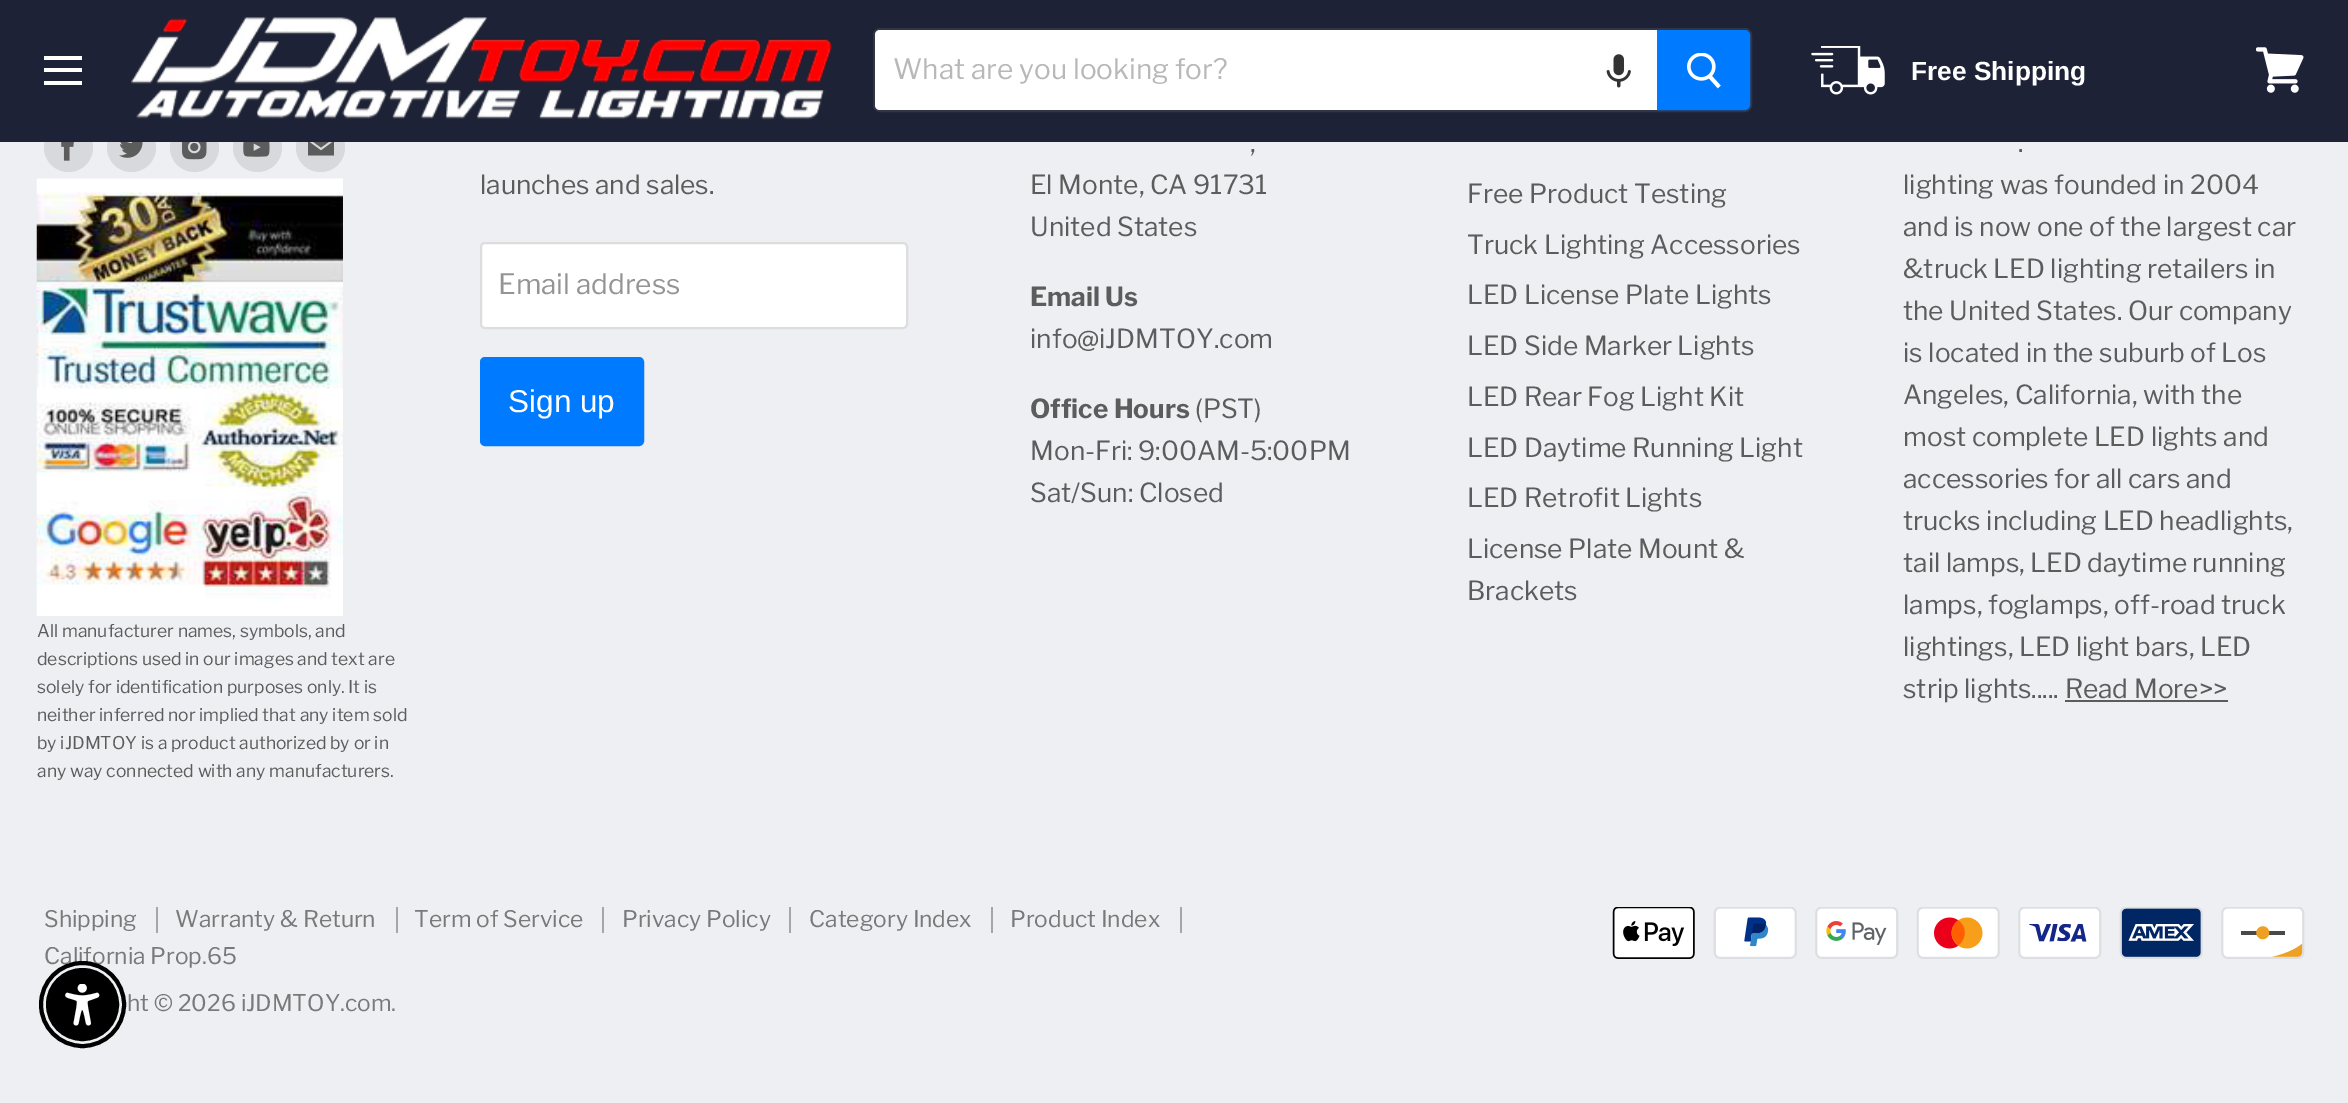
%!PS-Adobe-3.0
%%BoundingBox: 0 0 2348 1103
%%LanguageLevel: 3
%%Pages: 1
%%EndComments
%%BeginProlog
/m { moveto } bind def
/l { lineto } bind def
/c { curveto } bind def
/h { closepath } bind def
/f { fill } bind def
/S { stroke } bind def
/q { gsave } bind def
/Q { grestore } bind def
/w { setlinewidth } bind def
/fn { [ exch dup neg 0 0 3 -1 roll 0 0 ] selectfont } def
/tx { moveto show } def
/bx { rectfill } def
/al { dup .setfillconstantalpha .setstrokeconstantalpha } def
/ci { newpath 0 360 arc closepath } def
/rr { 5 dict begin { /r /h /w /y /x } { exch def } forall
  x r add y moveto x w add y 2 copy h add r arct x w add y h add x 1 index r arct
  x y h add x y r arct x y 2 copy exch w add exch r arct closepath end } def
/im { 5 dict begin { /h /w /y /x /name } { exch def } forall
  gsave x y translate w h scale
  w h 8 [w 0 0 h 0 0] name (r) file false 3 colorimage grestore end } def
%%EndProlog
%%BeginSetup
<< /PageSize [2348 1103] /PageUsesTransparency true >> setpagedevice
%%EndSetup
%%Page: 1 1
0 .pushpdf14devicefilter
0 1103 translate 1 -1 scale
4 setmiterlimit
0.929 0.937 0.953 setrgbcolor
0 0 2348 1103 bx
0.843 0.851 0.863 setrgbcolor
68.5 147.5 24.5 ci f
131.5 147.5 24.5 ci f
194.5 147.5 24.5 ci f
257.5 147.5 24.5 ci f
320.5 147.5 24.5 ci f
0.361 setgray
334 138 m 308 138 l 321 147.5 l h 321 150.5 m 308 141 l 308 155.5 l 334 155.5 l 334 141 l h eofill
0.114 0.133 0.212 setrgbcolor
0 0 2348 142 bx
1 setgray
44 56 38 4 bx
44 68 38 4 bx
44 81 38 4 bx
(image0.raw) 131 17 701 103 im
0.2 al
0.498 setgray
2 w
874 29 877 82 6 rr S
1 al
1 setgray
880 30 m 1657 30 l 1657 110 l 880 110 l 877 110 875 108 875 105 c 875 35 l 875 32 877 30 880 30 c h f
/LibreFranklin-Regular 28 fn
0.722 setgray
(What are you looking for?) 893 79 tx
(image1.raw) 1606 54 25 34 im
0 0.478 1 setrgbcolor
1658 31 m 1745 31 l 1747 31 1749 33 1749 35 c 1749 105 l 1749 107 1747 109 1745 109 c 1658 109 l h q f Q
S
(image2.raw) 1687 53 34 36 im
(image3.raw) 1811 46 74 49 im
/Arimo-Bold 26.25 fn
1 setgray
(Free Shipping) 1911 80 tx
(image4.raw) 2256 47 48 46 im
/LibreFranklin-Regular 26.25 fn
0.361 setgray
(launches and sales.) 480 194 tx
1 setgray
481 243 426 85 4 rr q f Q
0.867 setgray
S
/LibreFranklin-Regular 28 fn
0.58 setgray
(Email address) 498 294 tx
0 0.478 1 setrgbcolor
481 358 162 87 4 rr q f Q
S
/LiberationSans-Regular 31.5 fn
1 setgray
(Sign up) 508 412 tx
/LibreFranklin-Regular 26.25 fn
0.361 setgray
(,) 1250 152 tx
(El Monte, CA 91731) 1030 194 tx
(United States) 1030 236 tx
/LibreFranklin-Bold 26.25 fn
(Email Us) 1030 306 tx
/LibreFranklin-Regular 26.25 fn
(info@iJDMTOY.com) 1030 348 tx
/LibreFranklin-Bold 26.25 fn
(Office Hours) 1030 418 tx
/LibreFranklin-Regular 26.25 fn
(\(PST\)) 1195 418 tx
(Mon-Fri: 9:00AM-5:00PM) 1030 460 tx
(Sat/Sun: Closed) 1030 502 tx
(Free Product Testing) 1467 203 tx
(Truck Lighting Accessories) 1467 254 tx
(LED License Plate Lights) 1467 304 tx
(LED Side Marker Lights) 1467 355 tx
(LED Rear Fog Light Kit) 1467 406 tx
(LED Daytime Running Light) 1467 457 tx
(LED Retrofit Lights) 1467 507 tx
(License Plate Mount &) 1467 558 tx
(Brackets) 1467 600 tx
(.) 2018 152 tx
(lighting was founded in 2004) 1903 194 tx
(and is now one of the largest car) 1903 236 tx
(&truck LED lighting retailers in) 1903 278 tx
(the United States. Our company) 1903 320 tx
(is located in the suburb of Los) 1903 362 tx
(Angeles, California, with the) 1903 404 tx
(most complete LED lights and) 1903 446 tx
(accessories for all cars and) 1903 488 tx
(trucks including LED headlights,) 1903 530 tx
(tail lamps, LED daytime running) 1903 572 tx
(lamps, foglamps, off-road truck) 1903 614 tx
(lightings, LED light bars, LED) 1903 656 tx
(strip lights..... Read More>>) 1903 698 tx
2065 700 163 2 bx
(image5.raw) 61 142 13 19 im
(image6.raw) 119 142 24 16 im
(image7.raw) 182 142 25 18 im
(image8.raw) 243 142 27 15 im
(image9.raw) 36 178 307 438 im
/LibreFranklin-Regular 17.5 fn
(All manufacturer names, symbols, and) 37 637 tx
(descriptions used in our images and text are) 37 665 tx
(solely for identification purposes only. It is) 37 693 tx
(neither inferred nor implied that any item sold) 37 721 tx
(by iJDMTOY is a product authorized by or in) 37 749 tx
(any way connected with any manufacturers.) 37 777 tx
0.647 0.651 0.659 setrgbcolor
156 907 2 26 bx
/LibreFranklin-Regular 22.75 fn
0.475 0.475 0.478 setrgbcolor
(Shipping) 44 927 tx
0.647 0.651 0.659 setrgbcolor
396 907 2 26 bx
0.475 0.475 0.478 setrgbcolor
(Warranty & Return) 175 927 tx
0.647 0.651 0.659 setrgbcolor
602 907 2 26 bx
0.475 0.475 0.478 setrgbcolor
(Term of Service) 414 927 tx
0.647 0.651 0.659 setrgbcolor
789 907 2 26 bx
0.475 0.475 0.478 setrgbcolor
(Privacy Policy) 622 927 tx
0.647 0.651 0.659 setrgbcolor
991 907 2 26 bx
0.475 0.475 0.478 setrgbcolor
(Category Index) 809 927 tx
0.647 0.651 0.659 setrgbcolor
1180 907 2 26 bx
0.475 0.475 0.478 setrgbcolor
(Product Index) 1010 927 tx
(California Prop.65) 44 964 tx
(ht © 2026 iJDMTOY.com.) 127 1011 tx
(image10.raw) 1612 907 83 52 im
(image11.raw) 1713 907 84 52 im
(image12.raw) 1815 907 84 52 im
(image13.raw) 1916 907 84 52 im
(image14.raw) 2018 907 84 52 im
(image15.raw) 2119 907 84 52 im
(image16.raw) 2221 907 84 52 im
0 setgray
4 w
82.5 1004.5 41.5 ci S
82.5 1004.5 35.5 ci q f Q
2 w
S
(image17.raw) 65 984 35 42 im
.poppdf14devicefilter showpage
%%EOF
